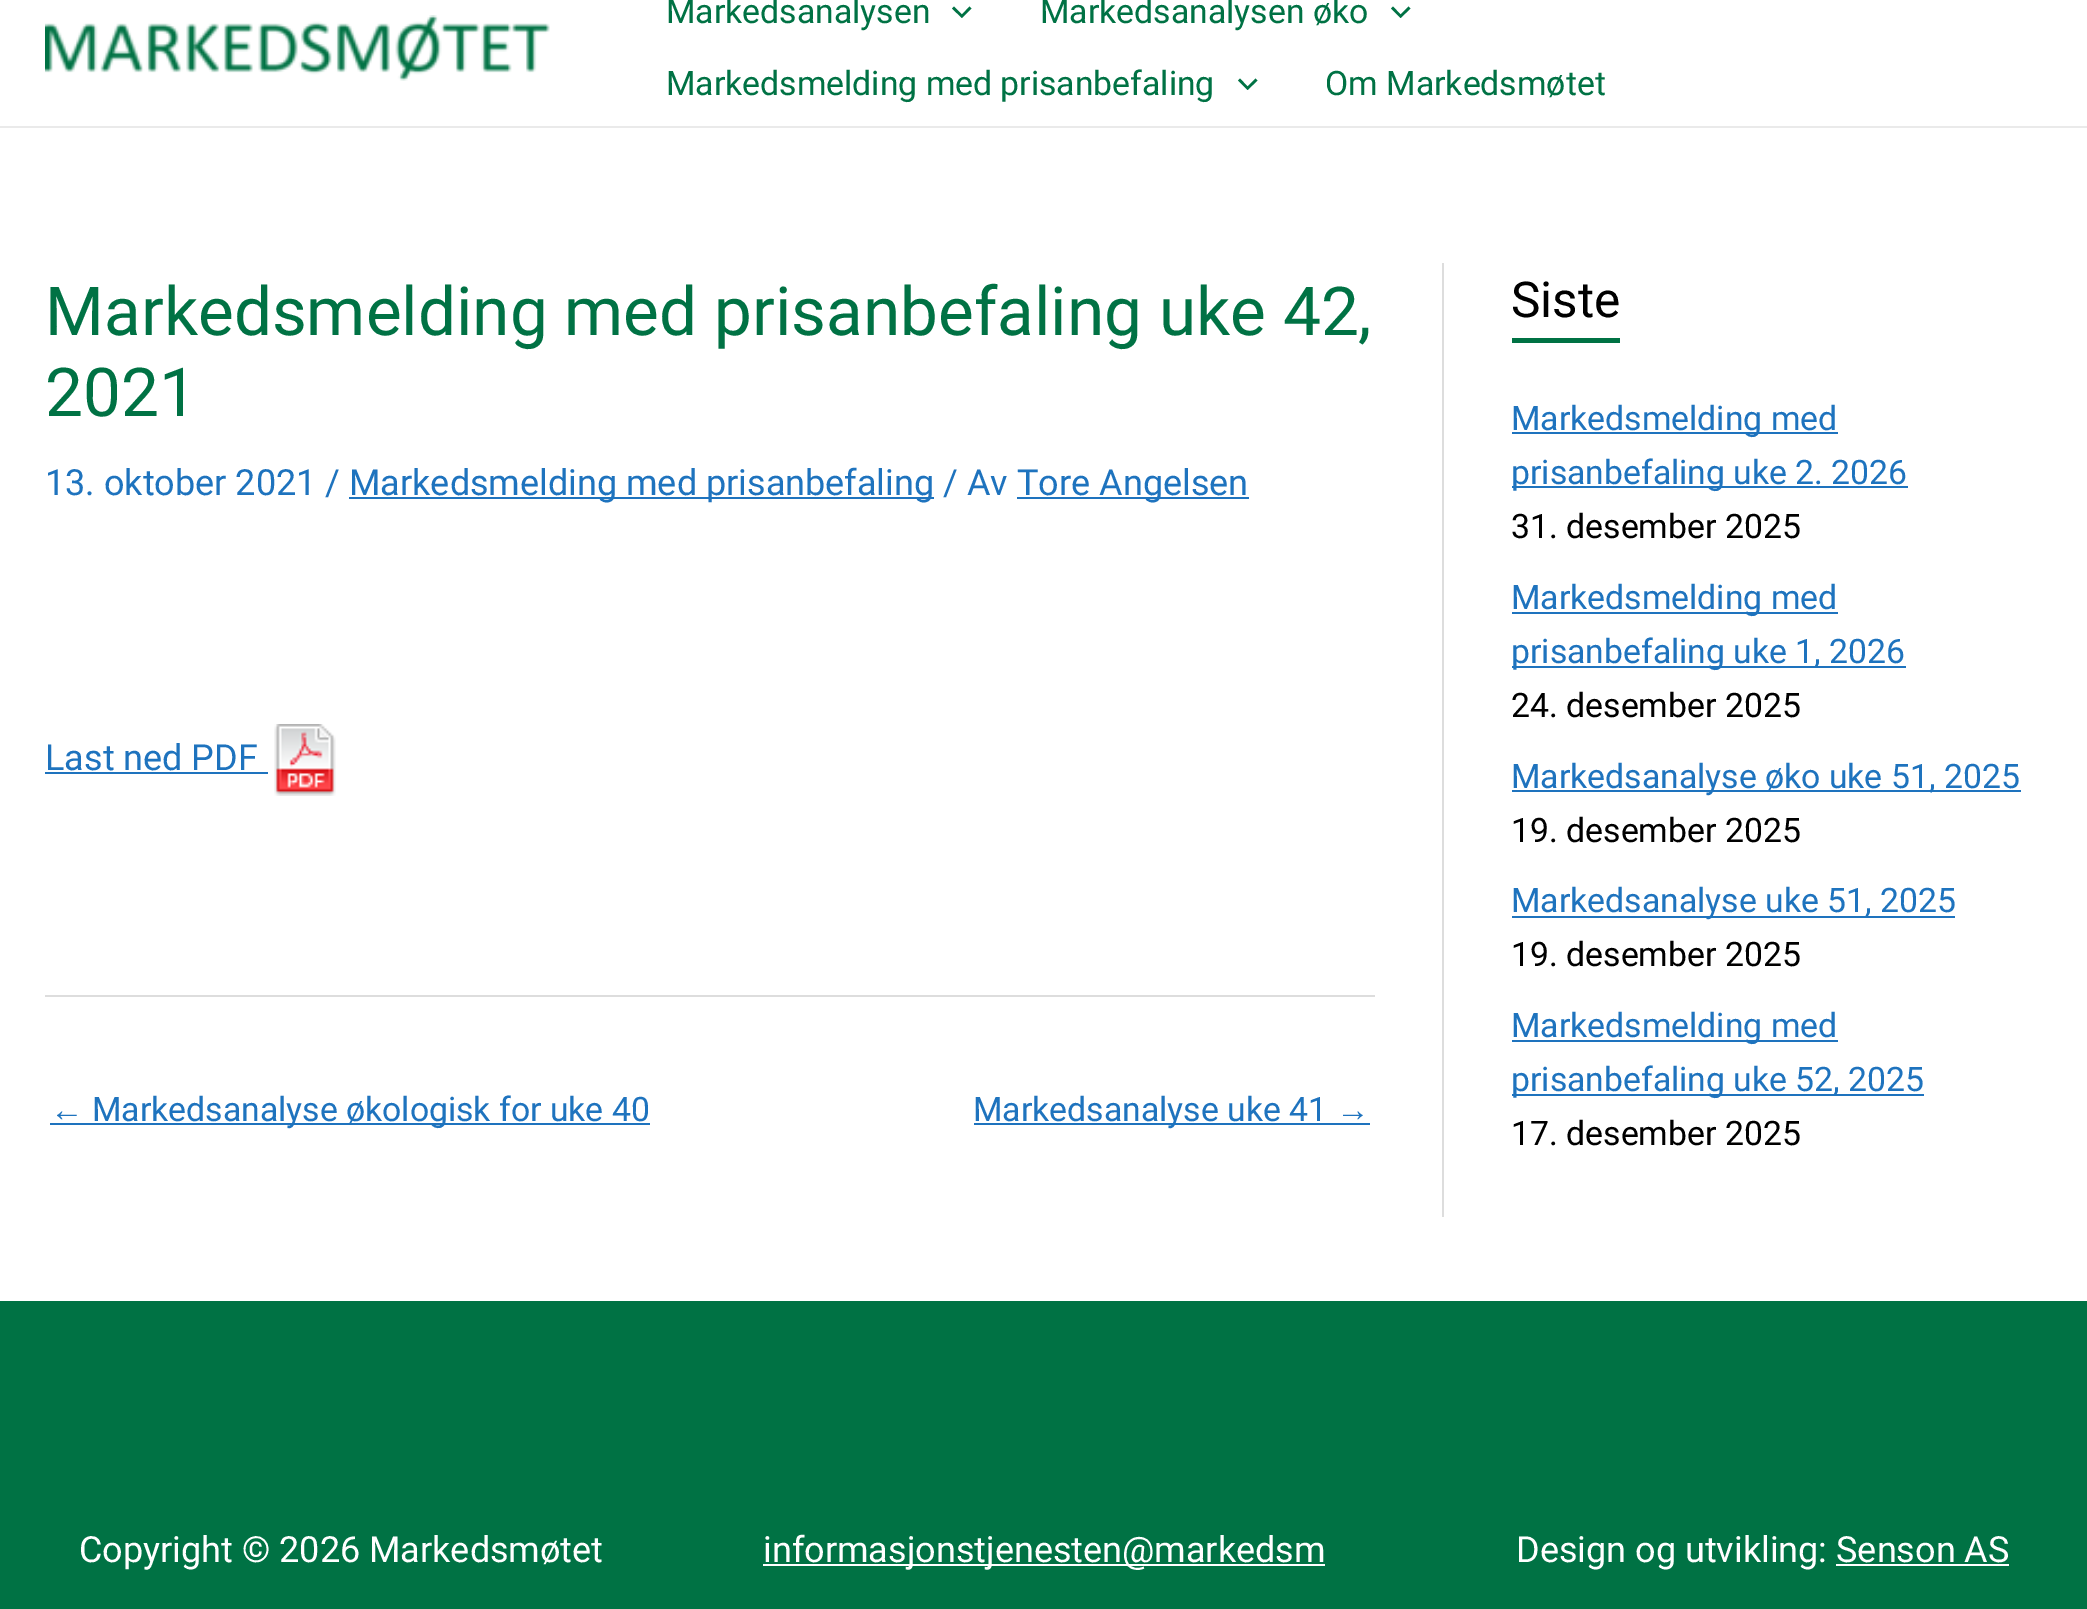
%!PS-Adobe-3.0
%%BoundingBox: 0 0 2087 1609
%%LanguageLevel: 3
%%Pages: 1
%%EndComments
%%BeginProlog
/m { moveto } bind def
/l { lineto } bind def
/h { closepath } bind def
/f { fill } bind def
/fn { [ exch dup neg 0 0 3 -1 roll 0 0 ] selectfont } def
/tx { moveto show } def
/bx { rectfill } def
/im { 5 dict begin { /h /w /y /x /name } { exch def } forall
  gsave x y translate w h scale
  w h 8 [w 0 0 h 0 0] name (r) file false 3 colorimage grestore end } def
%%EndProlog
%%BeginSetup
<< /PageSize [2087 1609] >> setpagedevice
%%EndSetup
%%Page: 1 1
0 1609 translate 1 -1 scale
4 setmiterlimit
1 setgray
0 0 2087 1609 bx
0.918 setgray
0 126 2087 2 bx
(image0.raw) 45 15 505 66 im
/Roboto-Regular 33.75 fn
0 0.447 0.267 setrgbcolor
(Markedsanalysen) 666 23 tx
952 8.5 m 962 18 l 971.5 8.5 l 969.5 6.5 l 962 14.5 l 954 6.5 l h f
(Markedsanalysen øko) 1040 23 tx
1391 8.5 m 1400.5 18 l 1410.5 8.5 l 1408.5 6.5 l 1400.5 14.5 l 1393 6.5 l h f
(Markedsmelding med prisanbefaling) 666 95 tx
1238 80.5 m 1247.5 90 l 1257.5 80.5 l 1255.5 78.5 l 1247.5 86.5 l 1240 78.5 l h f
(Om Markedsmøtet) 1325 95 tx
/Roboto-Regular 67.5 fn
(Markedsmelding med prisanbefaling uke 42,) 45 335 tx
(2021) 45 416 tx
/Roboto-Regular 36 fn
0.118 0.451 0.745 setrgbcolor
(13. oktober 2021 /) 45 495 tx
349 497 585 2 bx
(Markedsmelding med prisanbefaling / Av) 349 495 tx
1017 497 232 2 bx
(Tore Angelsen) 1017 495 tx
(Last ned PDF) 45 770 tx
45 772 223 2 bx
(image1.raw) 274 724 62 72 im
0.867 setgray
45 995 1330 2 bx
/LiberationSans-Regular 33.75 fn
0.118 0.451 0.745 setrgbcolor
(←) 50 1121 tx
50 1123 600 2 bx
/Roboto-Regular 33.75 fn
(Markedsanalyse økologisk for uke 40) 92 1121 tx
974 1123 396 2 bx
(Markedsanalyse uke 41) 973 1121 tx
/LiberationSans-Regular 33.75 fn
(→) 1336 1121 tx
0.867 setgray
1442 263 2 954 bx
0 0.447 0.267 setrgbcolor
1512 338 108 5 bx
/Roboto-Regular 49.5 fn
0 setgray
(Siste) 1511 317 tx
0.118 0.451 0.745 setrgbcolor
1512 432 326 2 bx
/Roboto-Regular 33.75 fn
(Markedsmelding med) 1511 430 tx
1512 486 396 2 bx
(prisanbefaling uke 2. 2026) 1511 484 tx
0 setgray
(31. desember 2025) 1511 538 tx
0.118 0.451 0.745 setrgbcolor
1512 612 326 2 bx
(Markedsmelding med) 1511 609 tx
1512 666 394 2 bx
(prisanbefaling uke 1, 2026) 1511 663 tx
0 setgray
(24. desember 2025) 1511 717 tx
0.118 0.451 0.745 setrgbcolor
1512 790 509 2 bx
(Markedsanalyse øko uke 51, 2025) 1511 788 tx
0 setgray
(19. desember 2025) 1511 842 tx
0.118 0.451 0.745 setrgbcolor
1512 916 443 2 bx
(Markedsanalyse uke 51, 2025) 1511 912 tx
0 setgray
(19. desember 2025) 1511 966 tx
0.118 0.451 0.745 setrgbcolor
1512 1040 326 2 bx
(Markedsmelding med) 1511 1037 tx
1512 1094 412 2 bx
(prisanbefaling uke 52, 2025) 1511 1091 tx
0 setgray
(17. desember 2025) 1511 1145 tx
0 0.447 0.267 setrgbcolor
0 1301 2087 308 bx
/Roboto-Regular 36 fn
1 setgray
(Copyright © 2026 Markedsmøtet) 79 1562 tx
763 1564 562 2 bx
(informasjonstjenesten@markedsm) 763 1562 tx
(Design og utvikling: Senson AS) 1516 1562 tx
1836 1564 173 2 bx
showpage
%%EOF
